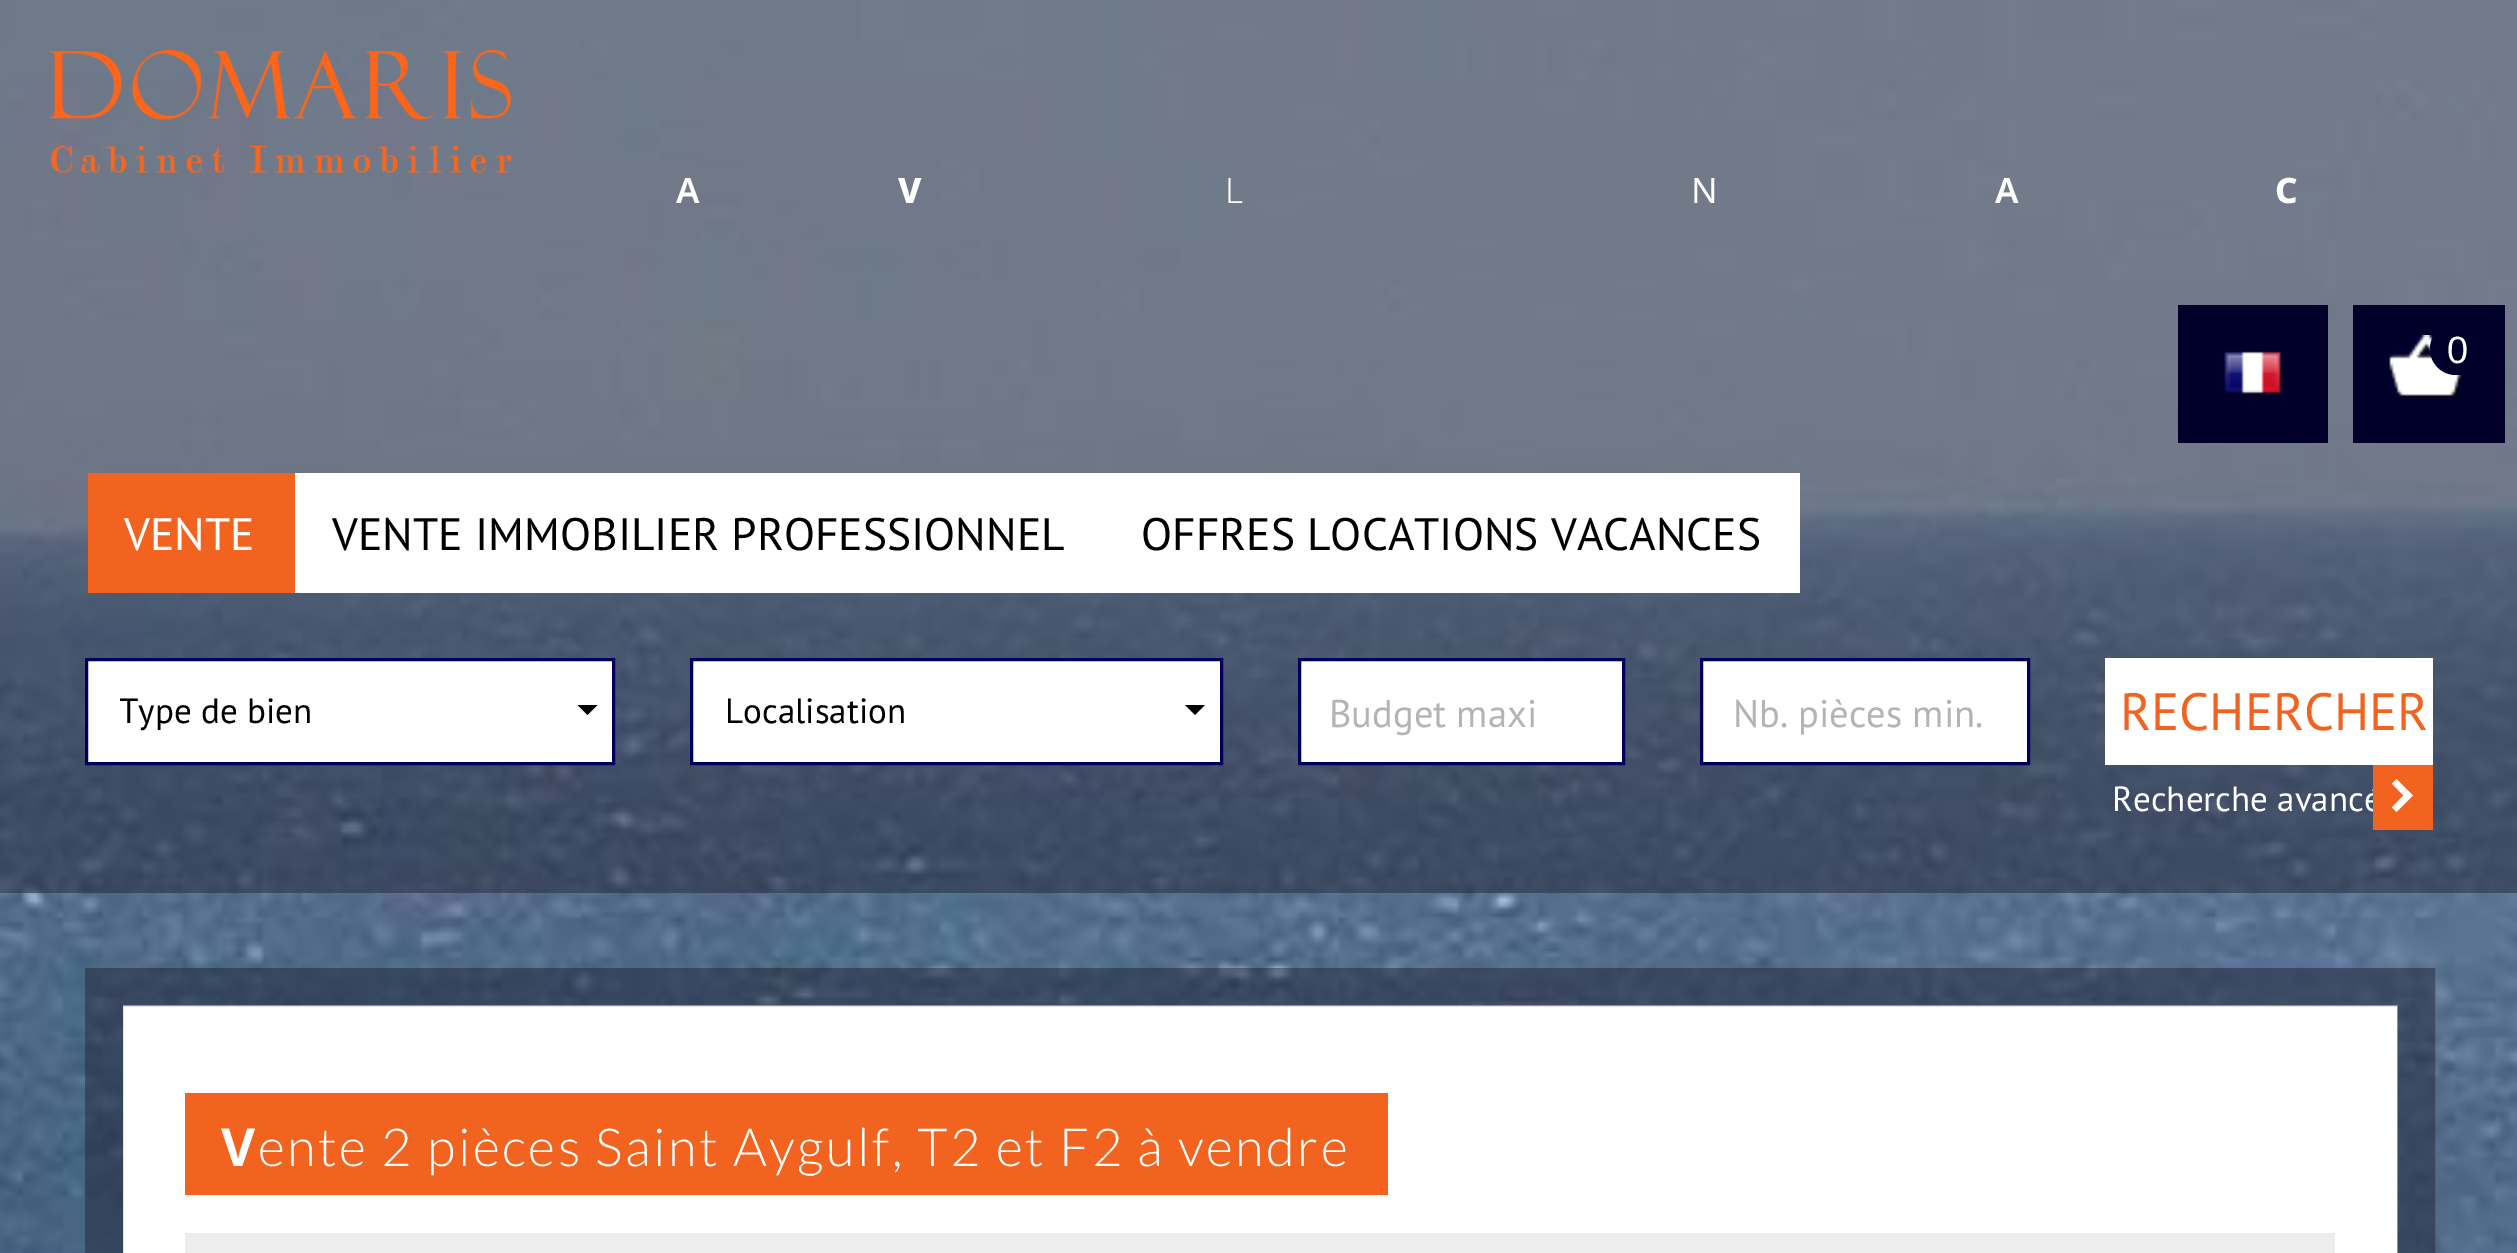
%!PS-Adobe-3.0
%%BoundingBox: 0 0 2517 1253
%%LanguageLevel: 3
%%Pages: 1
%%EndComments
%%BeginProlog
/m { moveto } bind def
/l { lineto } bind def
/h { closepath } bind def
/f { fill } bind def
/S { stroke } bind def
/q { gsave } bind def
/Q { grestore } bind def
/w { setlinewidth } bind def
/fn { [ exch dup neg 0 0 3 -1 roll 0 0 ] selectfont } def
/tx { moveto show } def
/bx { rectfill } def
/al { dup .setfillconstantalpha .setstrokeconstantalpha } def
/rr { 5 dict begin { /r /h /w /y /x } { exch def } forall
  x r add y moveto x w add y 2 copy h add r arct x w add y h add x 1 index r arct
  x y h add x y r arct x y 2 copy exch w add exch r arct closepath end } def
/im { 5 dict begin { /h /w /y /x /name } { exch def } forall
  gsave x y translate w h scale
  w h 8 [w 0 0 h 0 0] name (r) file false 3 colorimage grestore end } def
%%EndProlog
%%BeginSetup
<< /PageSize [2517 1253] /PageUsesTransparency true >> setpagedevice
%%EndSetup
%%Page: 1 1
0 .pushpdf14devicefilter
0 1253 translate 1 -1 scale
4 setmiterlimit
1 setgray
0 0 2517 1253 bx
(image0.raw) 0 0 2517 1253 im
0.5 al
0.129 0.141 0.216 setrgbcolor
0 0 2517 308 bx
1 al
(image1.raw) 50 50 463 123 im
/NotoSans-SemiBold 35 fn
1 setgray
(A) 676 203 tx
/NotoSans-ExtraBold 35 fn
(V) 898 203 tx
/NotoSans-Light 35 fn
(L) 1225 203 tx
/NotoSans-Regular 35 fn
(N) 1691 203 tx
/NotoSans-SemiBold 35 fn
(A) 1995 203 tx
/NotoSans-ExtraBold 35 fn
(C) 2275 203 tx
0.5 al
0.129 0.141 0.216 setrgbcolor
0 308 2517 585 bx
1 al
0.004 0 0.165 setrgbcolor
2178 305 150 138 bx
(image2.raw) 2224 351 58 44 im
2353 305 152 138 bx
(image3.raw) 2389 335 78 65 im
2430 323 55 52 26 rr f
/LiberationSans-Regular 38 fn
1 setgray
(0) 2447 363 tx
0.953 0.388 0.125 setrgbcolor
88 473 207 120 bx
/PTSans-Regular 45.5 fn
1 setgray
(VENTE) 124 550 tx
295 473 1505 120 bx
0 setgray
(VENTE IMMOBILIER PROFESSIONNEL) 332 550 tx
(OFFRES LOCATIONS VACANCES) 1141 550 tx
1 setgray
86.5 659.5 m 613.5 659.5 l 613.5 763.5 l 86.5 763.5 l h q f Q
0.008 0 0.365 setrgbcolor
3 w
S
q
120 678 428 65 rectclip
/PTSans-Regular 35 fn
0 setgray
(Type de bien) 119 723 tx
Q
0 setgray
577.5 705 m 597.5 705 l 587.5 715 l h f
1 setgray
691.5 659.5 m 1221.5 659.5 l 1221.5 763.5 l 691.5 763.5 l h q f Q
0.008 0 0.365 setrgbcolor
S
/PTSans-Regular 35 fn
0 setgray
(Localisation) 725 723 tx
1185 705 m 1205 705 l 1195 715 l h f
1 setgray
1299.5 659.5 m 1623.5 659.5 l 1623.5 763.5 l 1299.5 763.5 l h q f Q
0.008 0 0.365 setrgbcolor
S
/PTSans-Regular 38.5 fn
0.706 setgray
(Budget maxi) 1329 727 tx
1 setgray
1701.5 659.5 m 2028.5 659.5 l 2028.5 763.5 l 1701.5 763.5 l h q f Q
0.008 0 0.365 setrgbcolor
S
0.706 setgray
(Nb. pièces min.) 1733 727 tx
1 setgray
2105 658 328 107 bx
/PTSans-Regular 52.5 fn
0.953 0.388 0.125 setrgbcolor
(RECHERCHER) 2120 730 tx
/PTSans-Regular 35 fn
1 setgray
(Recherche avancé) 2112 811 tx
0.953 0.388 0.125 setrgbcolor
2373 765 60 65 bx
1 setgray
2396.5 812 m 2413 795.5 l 2396.5 779 l 2392 783.5 l 2403.5 795.5 l 2392 807.5 l h f
123 1005 2275 248 bx
0.5 al
0.129 0.141 0.216 setrgbcolor
38 w
104 987 2312 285 rectstroke
1 al
0.953 0.388 0.125 setrgbcolor
185 1093 1203 102 bx
/NotoSans-Bold 52.5 fn
1 setgray
221 1166 m 2.5 0 (V) ashow
/Lato-Light 52.5 fn
258 1166 m 2.5 0 (ente 2 pièces Saint Aygulf, T2 et F2 à vendre) ashow
0.929 setgray
185 1233 2150 20 bx
.poppdf14devicefilter showpage
%%EOF
